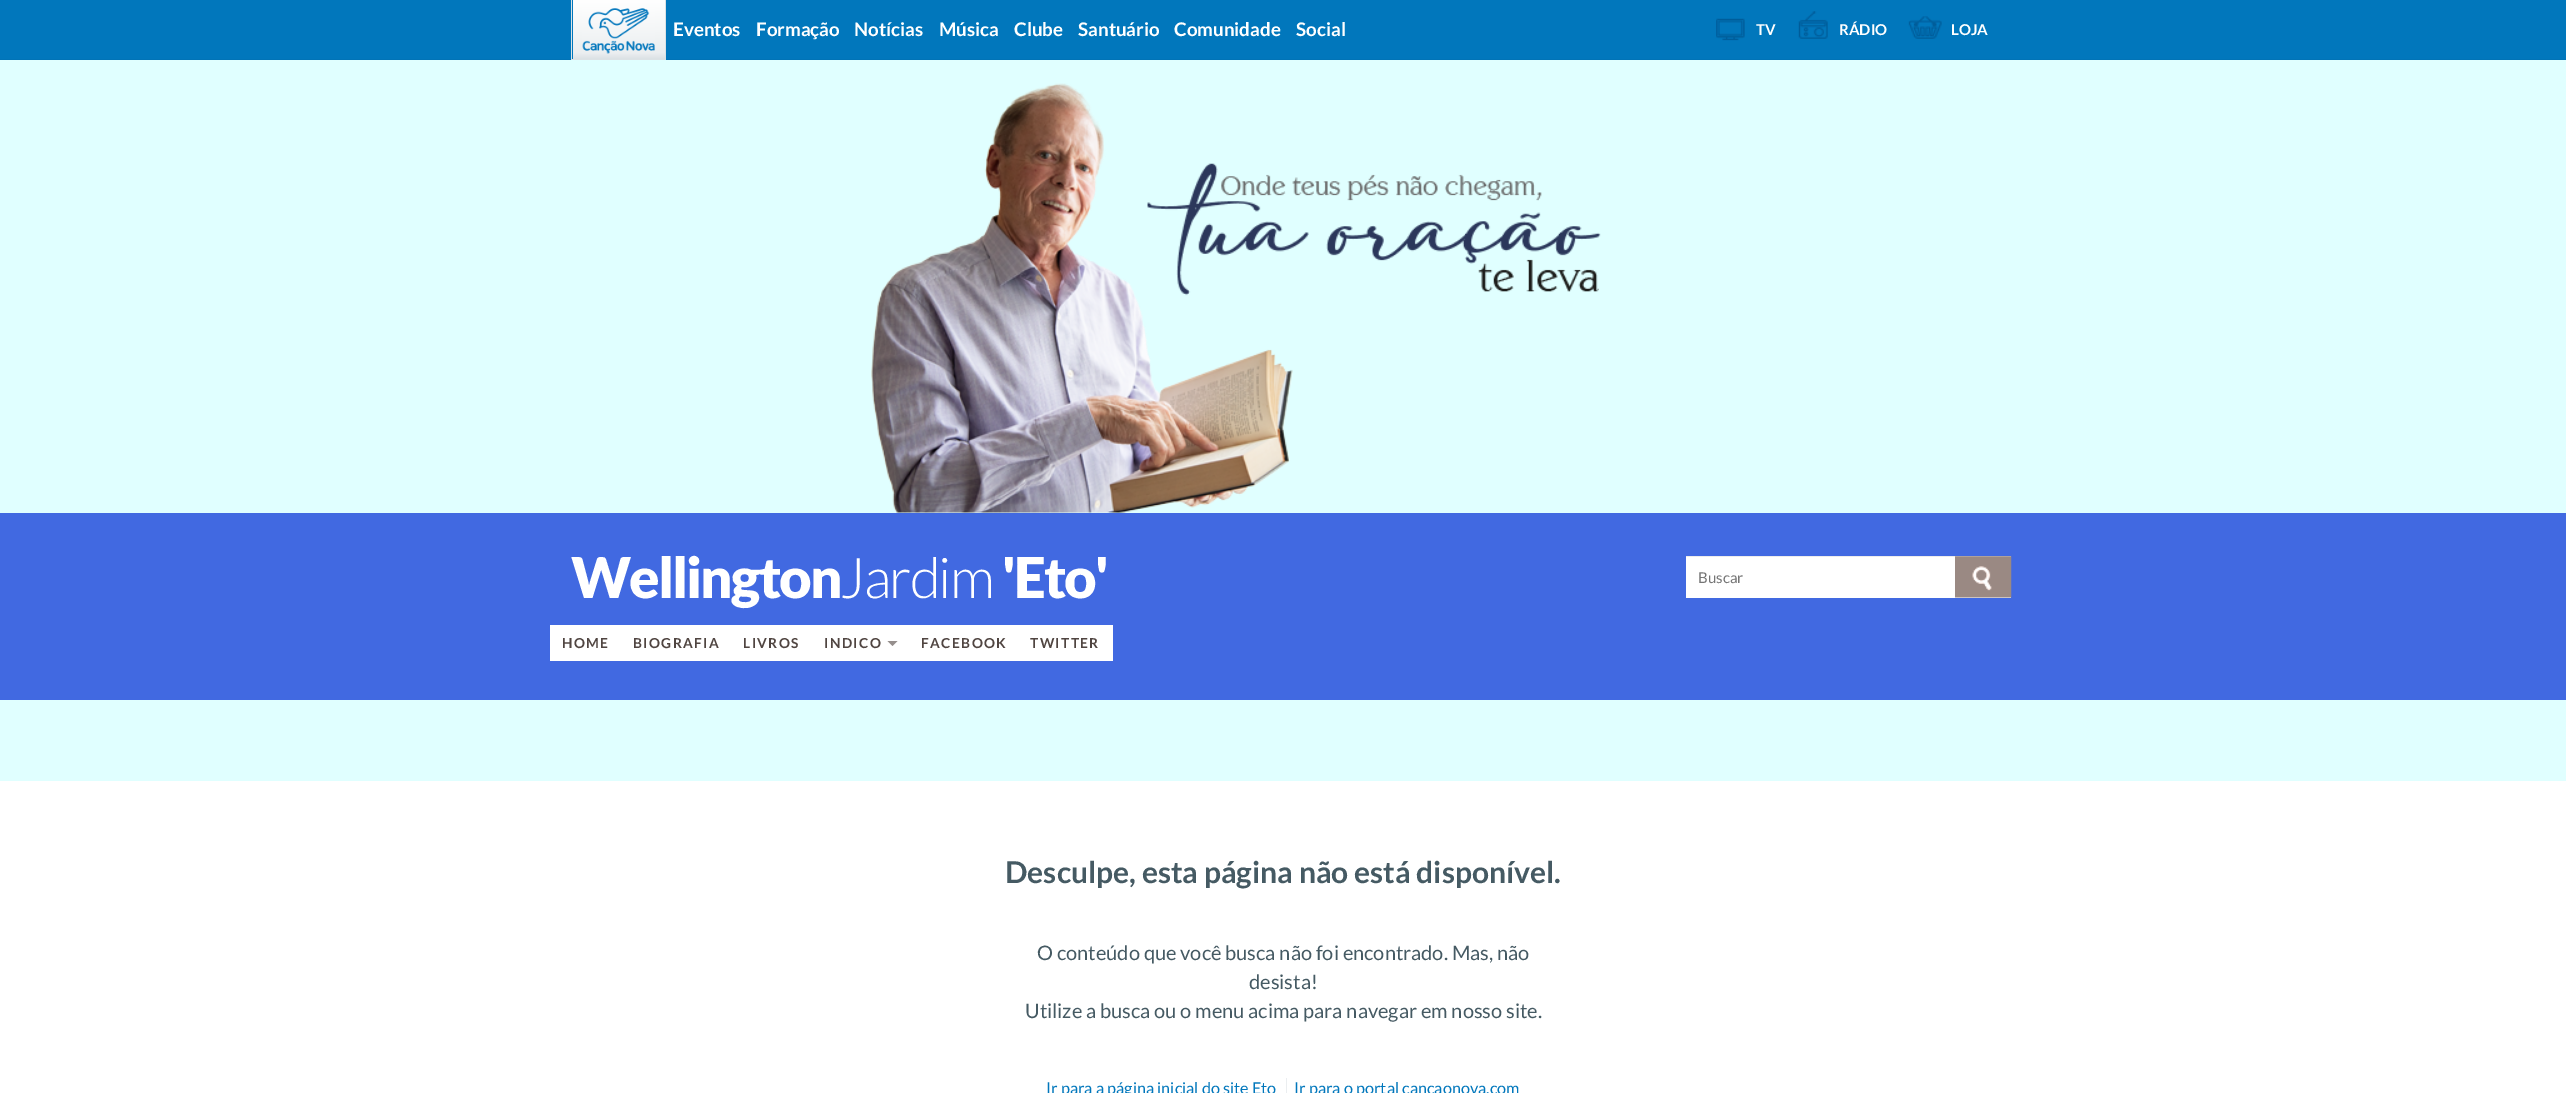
%!PS-Adobe-3.0
%%BoundingBox: 0 0 2566 1093
%%LanguageLevel: 3
%%Pages: 1
%%EndComments
%%BeginProlog
/m { moveto } bind def
/l { lineto } bind def
/h { closepath } bind def
/f { fill } bind def
/q { gsave } bind def
/Q { grestore } bind def
/fn { [ exch dup neg 0 0 3 -1 roll 0 0 ] selectfont } def
/tx { moveto show } def
/bx { rectfill } def
/im { 5 dict begin { /h /w /y /x /name } { exch def } forall
  gsave x y translate w h scale
  w h 8 [w 0 0 h 0 0] name (r) file false 3 colorimage grestore end } def
%%EndProlog
%%BeginSetup
<< /PageSize [2566 1093] >> setpagedevice
%%EndSetup
%%Page: 1 1
0 1093 translate 1 -1 scale
4 setmiterlimit
1 setgray
0 0 2566 1093 bx
0.004 0.467 0.737 setrgbcolor
0 0 2566 59 bx
0.004 0.451 0.714 setrgbcolor
0 59 2566 1 bx
q 573 0 m 665 0 l 665 59 l 573 59 l h clip newpath
<< /ShadingType 2 /ColorSpace /DeviceRGB /Coords [619 0 619 59] /Extend [true true] /Function << /FunctionType 3 /Domain [0 1] /Functions [<< /FunctionType 2 /Domain [0 1] /C0 [1 1 1] /C1 [0.922 0.933 0.941] /N 1 >> << /FunctionType 2 /Domain [0 1] /C0 [0.922 0.933 0.941] /C1 [0.863 0.886 0.898] /N 1 >>] /Bounds [0.9] /Encode [0 1 0 1] >> >> shfill Q
0.863 0.886 0.898 setrgbcolor
665 0 1 60 bx
571 59 95 1 bx
571 0 1 60 bx
(image0.raw) 582 8 73 46 im
/Lato-Bold 18.75 fn
1 setgray
(Eventos) 673 36 tx
(Formação) 756 36 tx
(Notícias) 854 36 tx
(Música) 939 36 tx
(Clube) 1014 36 tx
(Santuário) 1078 36 tx
(Comunidade) 1174 36 tx
(Social) 1296 36 tx
(image1.raw) 1716 18 29 23 im
/Lato-Bold 15 fn
(TV) 1756 35 tx
(image2.raw) 1798 11 30 28 im
(RÁDIO) 1839 35 tx
(image3.raw) 1908 16 34 23 im
(LOJA) 1951 35 tx
0.878 1 1 setrgbcolor
0 60 2566 721 bx
0.255 0.412 0.882 setrgbcolor
0 513 2566 187 bx
(image4.raw) 871 83 730 430 im
/Lato-Black 56.25 fn
1 setgray
571 598 m -1.9 0 (Wellington) ashow
/Lato-Light 56.25 fn
840 598 m -1.9 0 (Jardim) ashow
/Lato-Black 56.25 fn
1002 598 m -1.9 0 ('Eto') ashow
1686 557 325 41 bx
0.925 setgray
1686 556 325 1 bx
/Lato-Regular 15 fn
0.459 setgray
(Buscar) 1698 583 tx
(image5.raw) 1955 556 57 42 im
1 setgray
550 625 563 36 bx
/Lato-Bold 13.75 fn
0.314 0.271 0.255 setrgbcolor
562 648 m 1.4 0 (HOME) ashow
633 648 m 1.4 0 (BIOGRAFIA) ashow
743 648 m 1.4 0 (LIVROS) ashow
824 648 m 1.4 0 (INDICO) ashow
0.588 0.561 0.553 setrgbcolor
887.5 641 m 897.5 641 l 892.5 646 l h f
0.314 0.271 0.255 setrgbcolor
921 648 m 1.4 0 (FACEBOOK) ashow
1030 648 m 1.4 0 (TWITTER) ashow
/Lato-Bold 30 fn
0.271 0.353 0.388 setrgbcolor
(Desculpe, esta página não está disponível.) 1005 883 tx
/Lato-Regular 20 fn
(O conteúdo que você busca não foi encontrado. Mas, não) 1037 960 tx
(desista!) 1249 989 tx
(Utilize a busca ou o menu acima para navegar em nosso site.) 1025 1018 tx
/Lato-Regular 16.25 fn
0.004 0.467 0.737 setrgbcolor
(Ir para a página inicial do site Eto) 1046 1094 tx
0.922 0.933 0.941 setrgbcolor
1286 1078 1 15 bx
0.004 0.467 0.737 setrgbcolor
(Ir para o portal cancaonova.com) 1294 1094 tx
showpage
%%EOF
